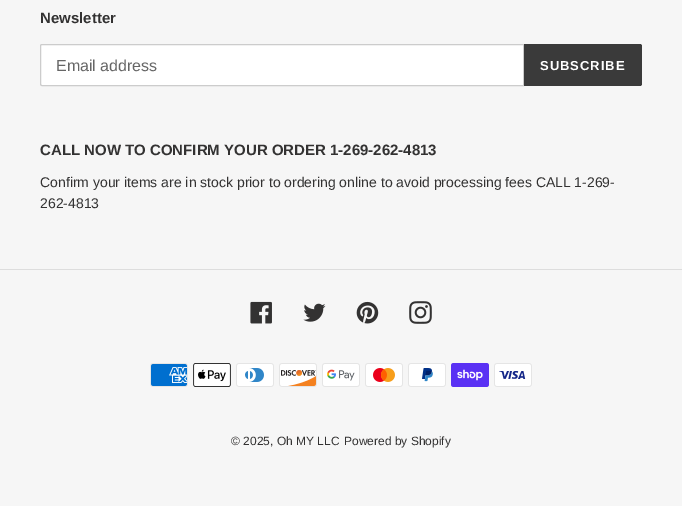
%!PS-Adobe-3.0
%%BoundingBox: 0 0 682 506
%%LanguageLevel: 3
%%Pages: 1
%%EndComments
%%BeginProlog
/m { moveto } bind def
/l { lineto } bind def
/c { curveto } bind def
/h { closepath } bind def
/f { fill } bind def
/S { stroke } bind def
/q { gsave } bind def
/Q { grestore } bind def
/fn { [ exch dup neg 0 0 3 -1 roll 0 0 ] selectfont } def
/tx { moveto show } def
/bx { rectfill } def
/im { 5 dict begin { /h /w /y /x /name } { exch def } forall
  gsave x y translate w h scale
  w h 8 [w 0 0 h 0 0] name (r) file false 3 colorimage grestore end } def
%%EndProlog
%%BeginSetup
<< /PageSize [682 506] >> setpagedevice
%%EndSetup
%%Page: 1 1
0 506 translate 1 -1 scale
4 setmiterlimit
0.965 setgray
0 0 682 506 bx
/LiberationSans-Bold 15 fn
0.2 0.196 0.196 setrgbcolor
(Newsletter) 40 23 tx
1 setgray
42 44.5 m 523.5 44.5 l 523.5 85.5 l 42 85.5 l 41 85.5 40.5 85 40.5 84 c 40.5 46 l 40.5 45 41 44.5 42 44.5 c h q f Q
0.8 setgray
S
/LiberationSans-Regular 16 fn
0.4 setgray
(Email address) 56 71 tx
0.227 setgray
524 44 m 640 44 l 641 44 642 45 642 46 c 642 84 l 642 85 641 86 640 86 c 524 86 l h f
/LiberationSans-Bold 13 fn
1 setgray
540 70 m 1 0 (SUBSCRIBE) ashow
/LiberationSans-Bold 15 fn
0.2 0.196 0.196 setrgbcolor
(CALL NOW TO CONFIRM YOUR ORDER 1-269-262-4813) 40 155 tx
/LiberationSans-Regular 14 fn
(Confirm your items are in stock prior to ordering online to avoid processing fees CALL 1-269-) 40 187 tx
(262-4813) 40 208 tx
0.867 setgray
0 269 682 1 bx
(image0.raw) 250 301 22 23 im
(image1.raw) 303 303 23 19 im
(image2.raw) 356 301 23 23 im
(image3.raw) 409 301 23 23 im
(image4.raw) 150 363 38 24 im
(image5.raw) 193 363 38 24 im
(image6.raw) 236 363 38 24 im
(image7.raw) 279 363 38 24 im
(image8.raw) 322 363 38 24 im
(image9.raw) 365 363 38 24 im
(image10.raw) 408 363 38 24 im
(image11.raw) 451 363 38 24 im
(image12.raw) 494 363 38 24 im
/LiberationSans-Regular 12 fn
0.2 0.196 0.196 setrgbcolor
(© 2025, Oh MY LLC) 231 445 tx
(Powered by Shopify) 344 445 tx
showpage
%%EOF
